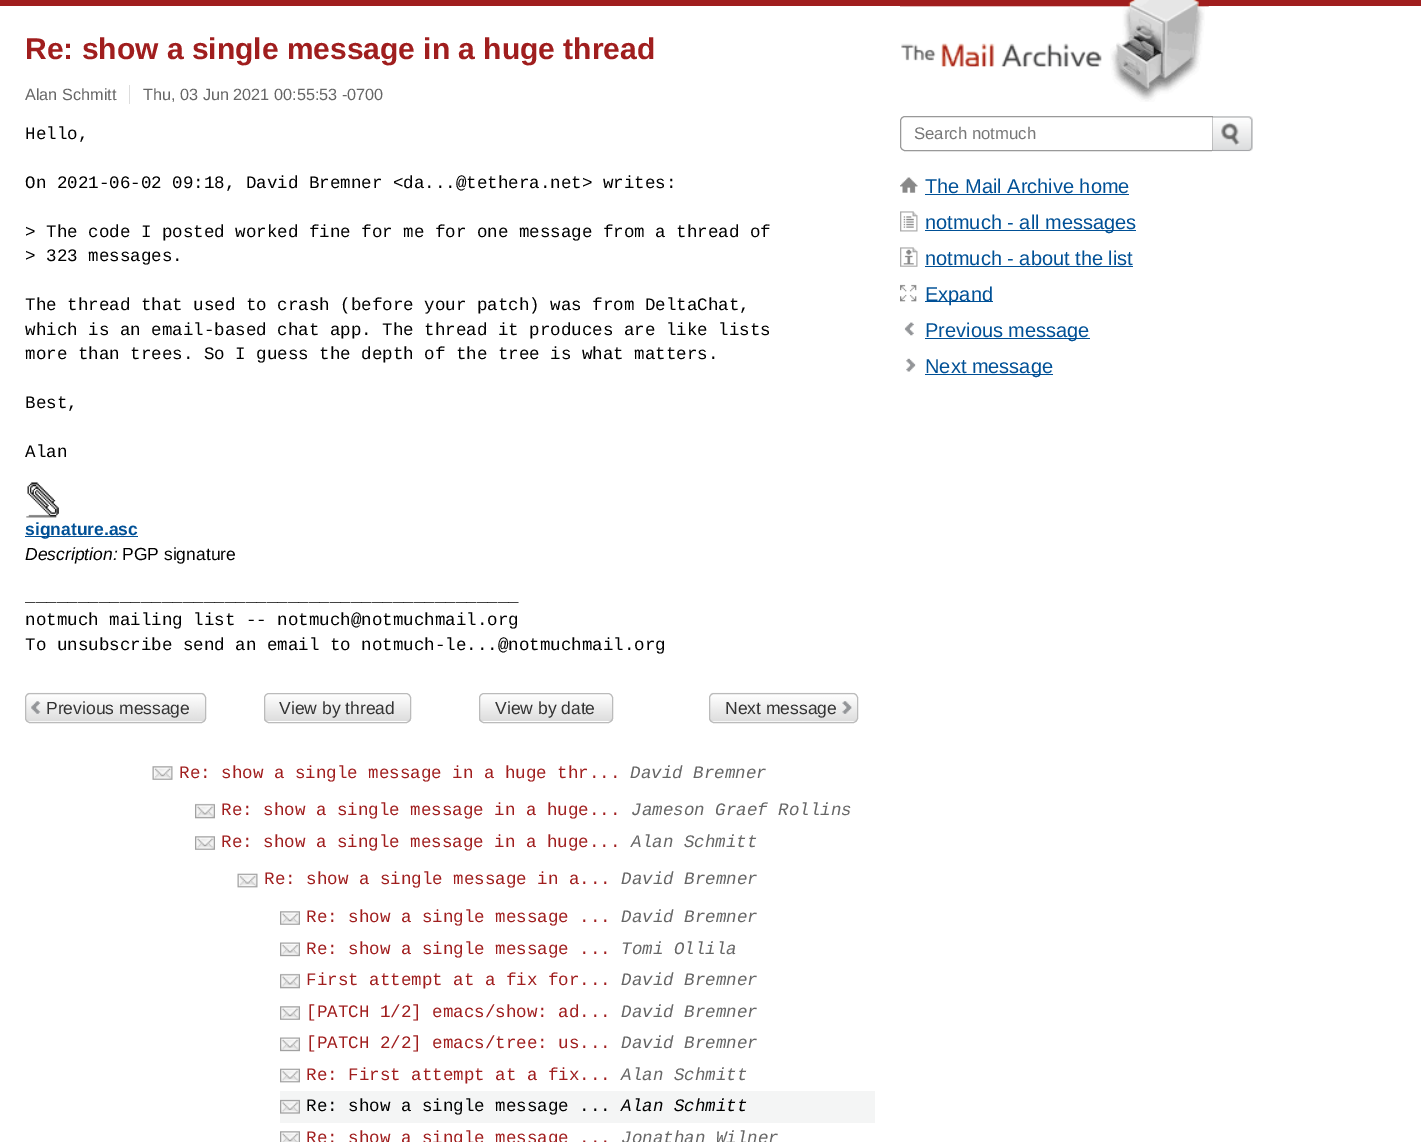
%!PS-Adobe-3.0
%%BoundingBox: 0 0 1421 1142
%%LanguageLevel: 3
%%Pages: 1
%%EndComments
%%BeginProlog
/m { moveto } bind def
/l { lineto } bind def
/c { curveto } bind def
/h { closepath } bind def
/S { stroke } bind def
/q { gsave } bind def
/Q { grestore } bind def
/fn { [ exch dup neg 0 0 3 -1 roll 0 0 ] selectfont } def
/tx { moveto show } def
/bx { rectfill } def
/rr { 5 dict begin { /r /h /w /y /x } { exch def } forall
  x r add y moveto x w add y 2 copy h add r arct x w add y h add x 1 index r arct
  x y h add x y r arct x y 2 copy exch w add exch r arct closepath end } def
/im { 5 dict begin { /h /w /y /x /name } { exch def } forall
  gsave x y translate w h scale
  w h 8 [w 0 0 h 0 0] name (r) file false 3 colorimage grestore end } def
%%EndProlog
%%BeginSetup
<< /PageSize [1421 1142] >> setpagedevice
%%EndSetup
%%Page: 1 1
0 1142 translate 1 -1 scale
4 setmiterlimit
1 setgray
0 0 1421 1142 bx
0.627 0.118 0.118 setrgbcolor
0 0 1421 6 bx
/LiberationSans-Bold 30 fn
(Re: show a single message in a huge thread) 25 59 tx
/LiberationSans-Regular 16.25 fn
0.4 setgray
(Alan Schmitt) 25 100 tx
0.867 setgray
129 85 1 19 bx
0.4 setgray
(Thu, 03 Jun 2021 00:55:53 -0700) 143 100 tx
/LiberationMono-Regular 17.5 fn
0 setgray
(Hello,) 25 139 tx
(On 2021-06-02 09:18, David Bremner <da...@tethera.net> writes:) 25 188 tx
(> The code I posted worked fine for me for one message from a thread of) 25 237 tx
(> 323 messages.) 25 261 tx
(The thread that used to crash \(before your patch\) was from DeltaChat,) 25 310 tx
(which is an email-based chat app. The thread it produces are like lists) 25 335 tx
(more than trees. So I guess the depth of the tree is what matters.) 25 359 tx
(Best,) 25 408 tx
(Alan) 25 457 tx
(image0.raw) 26 482 33 36 im
0 0.314 0.588 setrgbcolor
25 536 113 1 bx
/LiberationSans-Bold 17.5 fn
(signature.asc) 25 535 tx
/LiberationSans-Italic 17.5 fn
0 setgray
(Description:) 25 560 tx
/LiberationSans-Regular 17.5 fn
(PGP signature) 122 560 tx
/LiberationMono-Regular 17.5 fn
(_______________________________________________) 25 601 tx
(notmuch mailing list -- notmuch@notmuchmail.org) 25 625 tx
(To unsubscribe send an email to notmuch-le...@notmuchmail.org) 25 650 tx
(image1.raw) 25 692 181 30 im
0.733 setgray
25.5 693.5 180 29 4.5 rr S
/LiberationSans-Regular 17.5 fn
0.2 setgray
(Previous message) 46 714 tx
q
264 693 147 30 5 rr clip newpath
q 264 694 m 411 694 l 411 721 l 264 721 l h clip newpath
<< /ShadingType 2 /ColorSpace /DeviceRGB /Coords [338 694 338 721] /Extend [true true] /Function << /FunctionType 2 /Domain [0 1] /C0 [1 1 1] /C1 [0.867 0.867 0.867] /N 1 >> >> shfill Q
Q
0.733 setgray
264.5 693.5 146 29 4.5 rr S
0.2 setgray
(View by thread) 279 714 tx
q
479 693 134 30 5 rr clip newpath
q 479 694 m 613 694 l 613 721 l 479 721 l h clip newpath
<< /ShadingType 2 /ColorSpace /DeviceRGB /Coords [546 694 546 721] /Extend [true true] /Function << /FunctionType 2 /Domain [0 1] /C0 [1 1 1] /C1 [0.867 0.867 0.867] /N 1 >> >> shfill Q
Q
0.733 setgray
479.5 693.5 133 29 4.5 rr S
0.2 setgray
(View by date) 495 714 tx
(image2.raw) 709 692 148 30 im
0.733 setgray
709.5 693.5 148 29 4.5 rr S
0.2 setgray
(Next message) 725 714 tx
(image3.raw) 152 766 21 14 im
/LiberationMono-Regular 17.5 fn
0.627 0.118 0.118 setrgbcolor
(Re: show a single message in a huge thr...) 179 778 tx
/LiberationMono-Italic 17.5 fn
0.4 setgray
(David Bremner) 630 778 tx
(image4.raw) 195 803 20 16 im
/LiberationMono-Regular 17.5 fn
0.627 0.118 0.118 setrgbcolor
(Re: show a single message in a huge...) 221 815 tx
/LiberationMono-Italic 17.5 fn
0.4 setgray
(Jameson Graef Rollins) 631 815 tx
(image5.raw) 195 836 20 14 im
/LiberationMono-Regular 17.5 fn
0.627 0.118 0.118 setrgbcolor
(Re: show a single message in a huge...) 221 847 tx
/LiberationMono-Italic 17.5 fn
0.4 setgray
(Alan Schmitt) 631 847 tx
(image6.raw) 237 873 21 15 im
/LiberationMono-Regular 17.5 fn
0.627 0.118 0.118 setrgbcolor
(Re: show a single message in a...) 264 884 tx
/LiberationMono-Italic 17.5 fn
0.4 setgray
(David Bremner) 621 884 tx
(image7.raw) 280 911 20 14 im
/LiberationMono-Regular 17.5 fn
0.627 0.118 0.118 setrgbcolor
(Re: show a single message ...) 306 922 tx
/LiberationMono-Italic 17.5 fn
0.4 setgray
(David Bremner) 621 922 tx
(image8.raw) 280 942 20 15 im
/LiberationMono-Regular 17.5 fn
0.627 0.118 0.118 setrgbcolor
(Re: show a single message ...) 306 954 tx
/LiberationMono-Italic 17.5 fn
0.4 setgray
(Tomi Ollila) 621 954 tx
(image9.raw) 280 973 20 16 im
/LiberationMono-Regular 17.5 fn
0.627 0.118 0.118 setrgbcolor
(First attempt at a fix for...) 306 985 tx
/LiberationMono-Italic 17.5 fn
0.4 setgray
(David Bremner) 621 985 tx
(image7.raw) 280 1006 20 14 im
/LiberationMono-Regular 17.5 fn
0.627 0.118 0.118 setrgbcolor
([PATCH 1/2] emacs/show: ad...) 306 1017 tx
/LiberationMono-Italic 17.5 fn
0.4 setgray
(David Bremner) 621 1017 tx
(image8.raw) 280 1037 20 15 im
/LiberationMono-Regular 17.5 fn
0.627 0.118 0.118 setrgbcolor
([PATCH 2/2] emacs/tree: us...) 306 1048 tx
/LiberationMono-Italic 17.5 fn
0.4 setgray
(David Bremner) 621 1048 tx
(image10.raw) 280 1068 20 15 im
/LiberationMono-Regular 17.5 fn
0.627 0.118 0.118 setrgbcolor
(Re: First attempt at a fix...) 306 1080 tx
/LiberationMono-Italic 17.5 fn
0.4 setgray
(Alan Schmitt) 621 1080 tx
0.957 0.961 0.961 setrgbcolor
280 1091 595 32 bx
(image11.raw) 280 1099 20 15 im
/LiberationMono-Regular 17.5 fn
0 setgray
(Re: show a single message ...) 306 1111 tx
/LiberationMono-Italic 17.5 fn
(Alan Schmitt) 621 1111 tx
(image12.raw) 280 1131 20 11 im
/LiberationMono-Regular 17.5 fn
0.627 0.118 0.118 setrgbcolor
(Re: show a single message ...) 306 1143 tx
/LiberationMono-Italic 17.5 fn
0.4 setgray
(Jonathan Wilner) 621 1143 tx
(image13.raw) 900 0 309 102 im
0.6 setgray
905 116.5 m 1212.5 116.5 l 1212.5 150.5 l 905 150.5 l 902.5 150.5 900.5 148.5 900.5 146 c 900.5 121 l 900.5 118.5 902.5 116.5 905 116.5 c h S
/LiberationSans-Regular 16.75 fn
0.467 setgray
(Search notmuch) 914 139 tx
(image14.raw) 1212 116 41 36 im
(image15.raw) 900 177 18 16 im
/LiberationSans-Regular 20 fn
0 0.314 0.588 setrgbcolor
(The Mail Archive home) 925 193 tx
925 194 204 1 bx
(image16.raw) 900 211 18 21 im
925 230 211 1 bx
(notmuch - all messages) 925 229 tx
(image17.raw) 900 247 18 20 im
(notmuch - about the list) 925 265 tx
925 266 208 1 bx
(image18.raw) 900 284 17 18 im
925 301 68 1 bx
(Expand) 925 301 tx
(image19.raw) 904 322 10 14 im
925 338 165 1 bx
(Previous message) 925 337 tx
(image20.raw) 906 358 10 14 im
925 374 128 1 bx
(Next message) 925 373 tx
showpage
%%EOF
